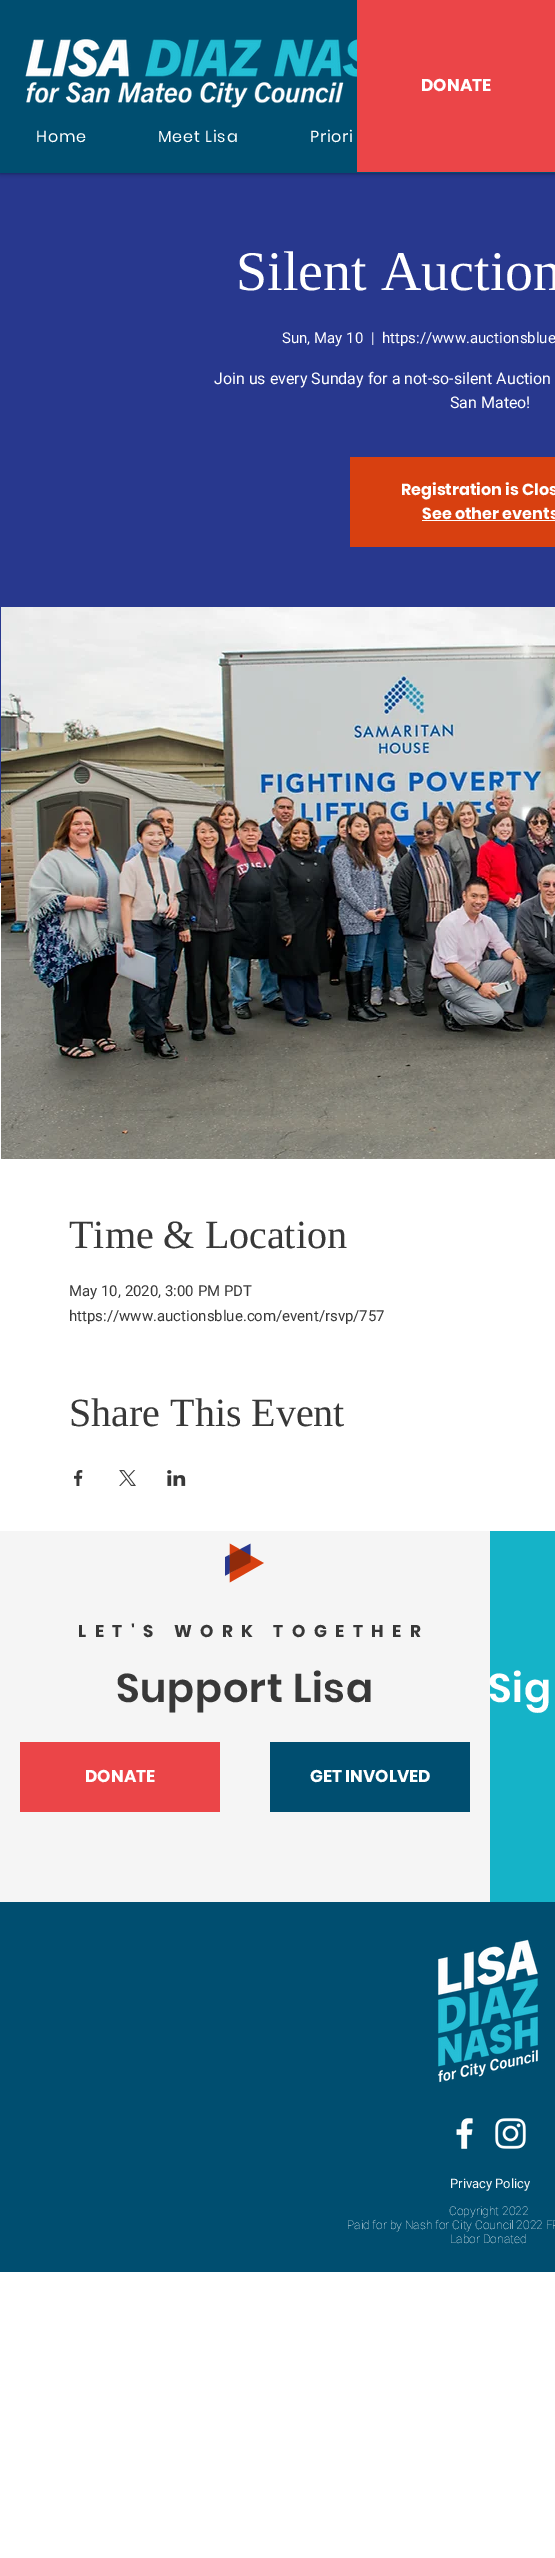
%!PS-Adobe-3.0
%%BoundingBox: 0 0 555 2558
%%LanguageLevel: 3
%%Pages: 1
%%EndComments
%%BeginProlog
/m { moveto } bind def
/fn { [ exch dup neg 0 0 3 -1 roll 0 0 ] selectfont } def
/tx { moveto show } def
/bx { rectfill } def
/al { dup .setfillconstantalpha .setstrokeconstantalpha } def
/rr { 5 dict begin { /r /h /w /y /x } { exch def } forall
  x r add y moveto x w add y 2 copy h add r arct x w add y h add x 1 index r arct
  x y h add x y r arct x y 2 copy exch w add exch r arct closepath end } def
/sh { 12 dict begin { /a /b /q /h /w /y /x } { exch def } forall gsave /was 0 def
  9 -2 -9 { dup b mul 4 div /e exch def 1 sub .425 mul 2.718 exch exp 1 add a .99 .min exch div /now exch def
    1 1 now sub 1 was sub div sub al /was now def
    w h .min e 2 mul add 0 gt { x e sub y e sub w e 2 mul add h e 2 mul add
      q e add b .6 mul add w h .min 2 div e add .min 0 .max rr fill } if } for grestore end } def
/im { 5 dict begin { /h /w /y /x /name } { exch def } forall
  gsave x y translate w h scale
  w h 8 [w 0 0 h 0 0] name (r) file false 3 colorimage grestore end } def
%%EndProlog
%%BeginSetup
<< /PageSize [555 2558] /PageUsesTransparency true >> setpagedevice
%%EndSetup
%%Page: 1 1
0 .pushpdf14devicefilter
0 2558 translate 1 -1 scale
4 setmiterlimit
1 setgray
0 0 555 2558 bx
0.157 0.22 0.557 setrgbcolor
0 173 555 710 bx
0 setgray
0 0 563 173 0 2.5 0.5 sh
0 0.306 0.439 setrgbcolor
0 0 555 173 bx
0.922 0.271 0.282 setrgbcolor
357 0 198 172 bx
/Poppins-Bold 17 fn
1 setgray
(DONATE) 421 91 tx
(image0.raw) 25 37 332 71 im
/Poppins-Regular 16 fn
36 142 m 0.75 0 (Home) ashow
158 142 m 0.75 0 (Meet Lisa) ashow
310 142 m 0.75 0 (Priori) ashow
/LiberationSerif-Regular 56 fn
(Silent Auction) 236 290 tx
/Roboto-Regular 15 fn
(Sun, May 10) 282 343 tx
(|) 371 343 tx
(https://www.auctionsblue) 382 343 tx
/Roboto-Regular 16 fn
(Join us every Sunday for a not-so-silent Auction) 214 384 tx
(San Mateo!) 450 408 tx
0.847 0.251 0.063 setrgbcolor
350 457 205 90 bx
/Poppins-Bold 16 fn
1 setgray
(Registration is Clos) 401 495 tx
(See other events) 422 519 tx
422 520 133 1 bx
(image1.raw) 1 607 554 552 im
/LiberationSerif-Regular 40 fn
0.22 setgray
(Time & Location) 69 1248 tx
/Roboto-Regular 15 fn
(May 10, 2020, 3:00 PM PDT) 69 1296 tx
(https://www.auctionsblue.com/event/rsvp/757) 69 1321 tx
/LiberationSerif-Regular 40 fn
(Share This Event) 69 1426 tx
(image2.raw) 74 1470 9 16 im
(image3.raw) 119 1470 17 16 im
(image4.raw) 167 1470 19 16 im
0.961 setgray
0 1531 490 371 bx
(image5.raw) 225 1543 39 40 im
/Poppins-Bold 17 fn
0.22 setgray
78 1637 m 8.5 0 (LET'S WORK TOGETHER) ashow
/Poppins-SemiBold 40 fn
116 1702 m 0.75 0 (Support Lisa) ashow
0.922 0.271 0.282 setrgbcolor
20 1742 200 70 bx
/Poppins-Bold 17 fn
1 setgray
(DONATE) 85 1782 tx
0 0.306 0.439 setrgbcolor
270 1742 200 70 bx
1 setgray
(GET INVOLVED) 310 1782 tx
0.082 0.702 0.784 setrgbcolor
490 1531 65 371 bx
/Poppins-SemiBold 40 fn
1 setgray
488 1702 m 0.75 0 (Sig) ashow
0 0.306 0.439 setrgbcolor
0 1902 555 370 bx
(image6.raw) 438 1939 100 144 im
(image7.raw) 456 2118 17 31 im
(image8.raw) 495 2118 31 31 im
/Roboto-Regular 13 fn
0.976 setgray
(Privacy Policy) 450 2188 tx
/Roboto-Thin 12 fn
1 setgray
(Copyright 2022) 449 2215 tx
(Paid for by Nash for City Council 2022 FP) 347 2229 tx
(Labor Donated) 450 2243 tx
.poppdf14devicefilter showpage
%%EOF
